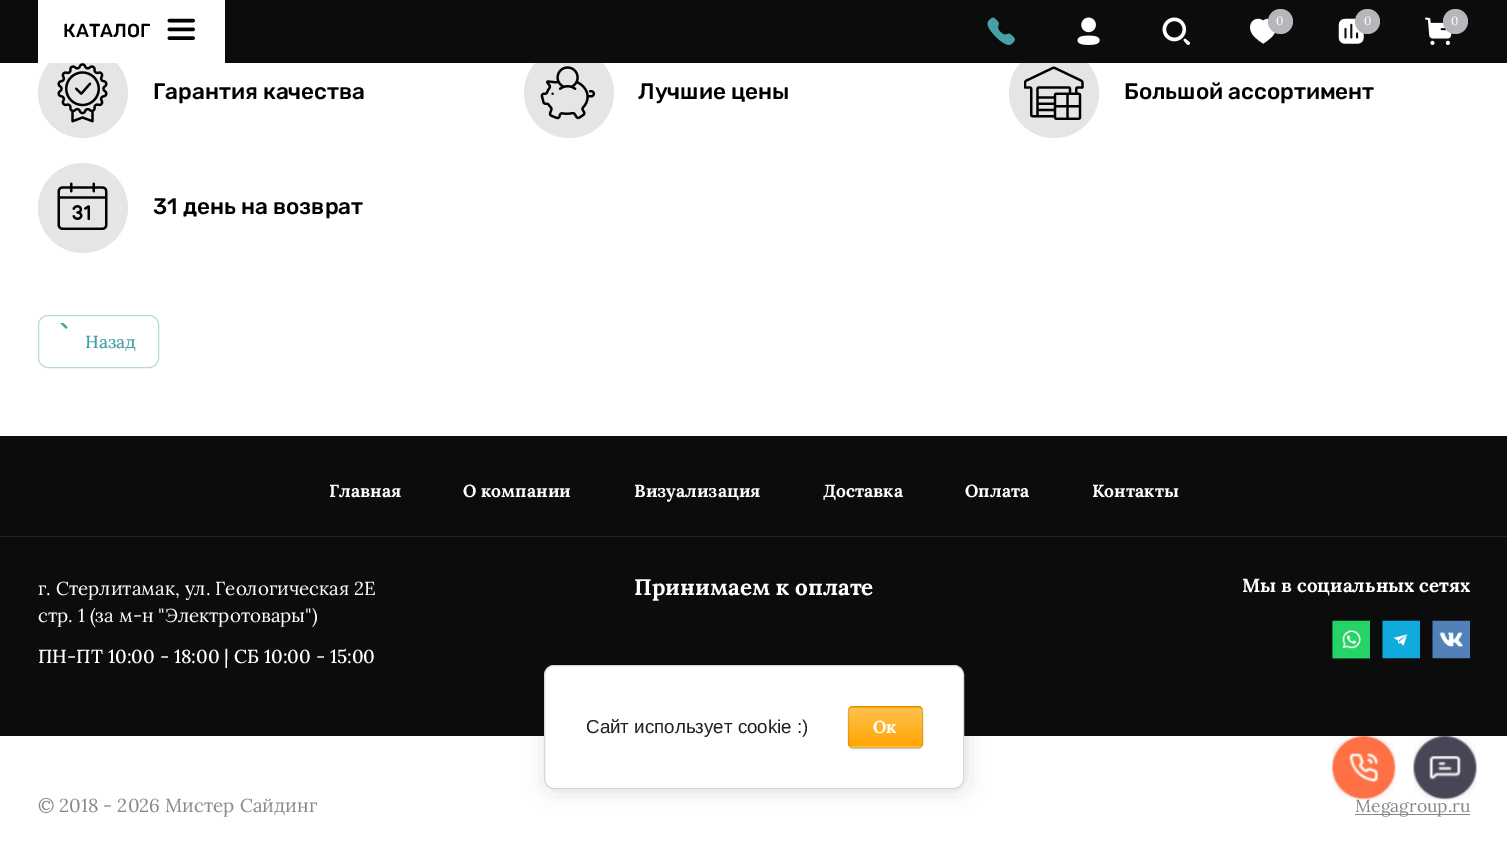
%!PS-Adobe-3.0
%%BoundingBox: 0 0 1507 868
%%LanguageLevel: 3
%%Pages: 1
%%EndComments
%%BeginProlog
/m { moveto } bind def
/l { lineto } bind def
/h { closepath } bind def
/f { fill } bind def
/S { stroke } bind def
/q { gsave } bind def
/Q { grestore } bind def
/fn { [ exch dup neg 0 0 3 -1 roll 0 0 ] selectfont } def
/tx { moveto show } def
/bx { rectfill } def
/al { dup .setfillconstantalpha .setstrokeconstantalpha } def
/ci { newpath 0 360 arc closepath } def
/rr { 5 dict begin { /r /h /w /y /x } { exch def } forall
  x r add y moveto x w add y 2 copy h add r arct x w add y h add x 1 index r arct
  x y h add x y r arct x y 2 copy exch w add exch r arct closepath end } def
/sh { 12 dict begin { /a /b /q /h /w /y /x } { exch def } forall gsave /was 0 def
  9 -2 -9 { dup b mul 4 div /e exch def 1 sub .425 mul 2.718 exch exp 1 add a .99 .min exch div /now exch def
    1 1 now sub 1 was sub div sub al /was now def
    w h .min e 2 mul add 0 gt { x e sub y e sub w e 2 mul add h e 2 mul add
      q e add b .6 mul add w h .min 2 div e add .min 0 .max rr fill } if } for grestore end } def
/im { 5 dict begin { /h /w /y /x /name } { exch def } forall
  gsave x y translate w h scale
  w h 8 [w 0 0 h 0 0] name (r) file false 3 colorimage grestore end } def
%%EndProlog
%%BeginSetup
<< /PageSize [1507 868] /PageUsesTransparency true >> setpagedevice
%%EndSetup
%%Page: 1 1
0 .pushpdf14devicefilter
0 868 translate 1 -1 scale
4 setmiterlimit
1 setgray
0 0 1507 868 bx
0.898 setgray
83 93 45 ci f
569 93 45 ci f
1054 93 45 ci f
0.047 setgray
0 0 1507 63 bx
(image0.raw) 987 17 28 28 im
(image1.raw) 1077 17 23 28 im
(image2.raw) 1162 17 28 28 im
(image3.raw) 1250 18 26 26 im
0.714 0.718 0.729 setrgbcolor
1280.5 21.5 12.5 ci f
/Lora-Regular 12 fn
1 setgray
(0) 1276 25 tx
(image4.raw) 1338 18 26 26 im
0.714 0.718 0.729 setrgbcolor
1367.5 21.5 12.5 ci f
1 setgray
(0) 1364 25 tx
(image5.raw) 1425 17 27 28 im
0.714 0.718 0.729 setrgbcolor
1455.5 21.5 12.5 ci f
1 setgray
(0) 1451 25 tx
38 0 187 63 bx
/Rubik-Medium 18.75 fn
0 setgray
(КАТАЛОГ) 63 37 tx
(image6.raw) 167 18 28 22 im
(image7.raw) 57 63 51 60 im
/Rubik-Medium 22.5 fn
(Гарантия качества) 153 99 tx
(image8.raw) 540 66 56 54 im
(Лучшие цены) 638 99 tx
(image9.raw) 1024 66 60 54 im
(Большой ассортимент) 1124 99 tx
0.898 setgray
83 208 45 ci f
(image10.raw) 57 182 51 48 im
0 setgray
(31 день на возврат) 153 214 tx
0.71 0.851 0.863 setrgbcolor
38.5 315.5 120 52 9.5 rr S
(image11.raw) 60 323 8 6 im
/Lora-Medium 17.5 fn
0.275 0.631 0.655 setrgbcolor
(Назад) 85 348 tx
0.047 setgray
0 436 1507 300 bx
0.141 setgray
0 536 1507 1 bx
/Lora-Bold 17.5 fn
1 setgray
(Главная) 329 497 tx
(О компании) 463 497 tx
(Визуализация) 634 497 tx
(Доставка) 823 497 tx
(Оплата) 965 497 tx
(Контакты) 1092 497 tx
/Lora-Regular 18.75 fn
(г. Стерлитамак, ул. Геологическая 2Е) 38 595 tx
(стр. 1 \(за м-н "Электротовары"\)) 38 622 tx
/Lora-Medium 18.75 fn
(ПН-ПТ 10:00 - 18:00 | СБ 10:00 - 15:00) 38 663 tx
/Lora-Bold 22.5 fn
(Принимаем к оплате) 634 595 tx
/Lora-Bold 18.75 fn
(Мы в социальных сетях) 1242 592 tx
(image12.raw) 1332 620 38 39 im
(image13.raw) 1382 620 38 39 im
(image14.raw) 1432 620 38 39 im
/Lora-Regular 18.75 fn
0.537 setgray
(© 2018 - 2026 Мистер Сайдинг) 38 812 tx
1355 814 115 1 bx
/Lora-Regular 17.5 fn
(Megagroup.ru) 1355 812 tx
0 setgray
546 668 420 123 10 11 0.14 sh
1 setgray
544.5 665.5 419 123 9.5 rr q f Q
0.839 setgray
S
/LiberationSans-Regular 18.75 fn
0.129 setgray
(Сайт использует cookie :\)) 586 733 tx
0 setgray
848 708 75 41 5 0.5 0.2 sh
q
848 706 75 42 5 rr clip newpath
q 848 706 m 923 706 l 923 708 l 848 708 l h clip newpath
<< /ShadingType 2 /ColorSpace /DeviceRGB /Coords [885 669 885 708] /Extend [true true] /Function << /FunctionType 2 /Domain [0 1] /C0 [1 0.757 0.306] /C1 [1 0.651 0.004] /N 1 >> >> shfill Q
q 848 708 m 923 708 l 923 746 l 848 746 l h clip newpath
<< /ShadingType 2 /ColorSpace /DeviceRGB /Coords [885 708 885 746] /Extend [true true] /Function << /FunctionType 2 /Domain [0 1] /C0 [1 0.757 0.306] /C1 [1 0.651 0.004] /N 1 >> >> shfill Q
q 848 746 m 923 746 l 923 748 l 848 748 l h clip newpath
<< /ShadingType 2 /ColorSpace /DeviceRGB /Coords [885 746 885 785] /Extend [true true] /Function << /FunctionType 2 /Domain [0 1] /C0 [1 0.757 0.306] /C1 [1 0.651 0.004] /N 1 >> >> shfill Q
Q
0.1 al
848.5 706.5 74 41 4.5 rr S
/Lora-Bold 17.5 fn
1 al
1 setgray
(Ок) 873 733 tx
(image15.raw) 1332 736 64 64 im
(image16.raw) 1413 736 64 64 im
.poppdf14devicefilter showpage
%%EOF
